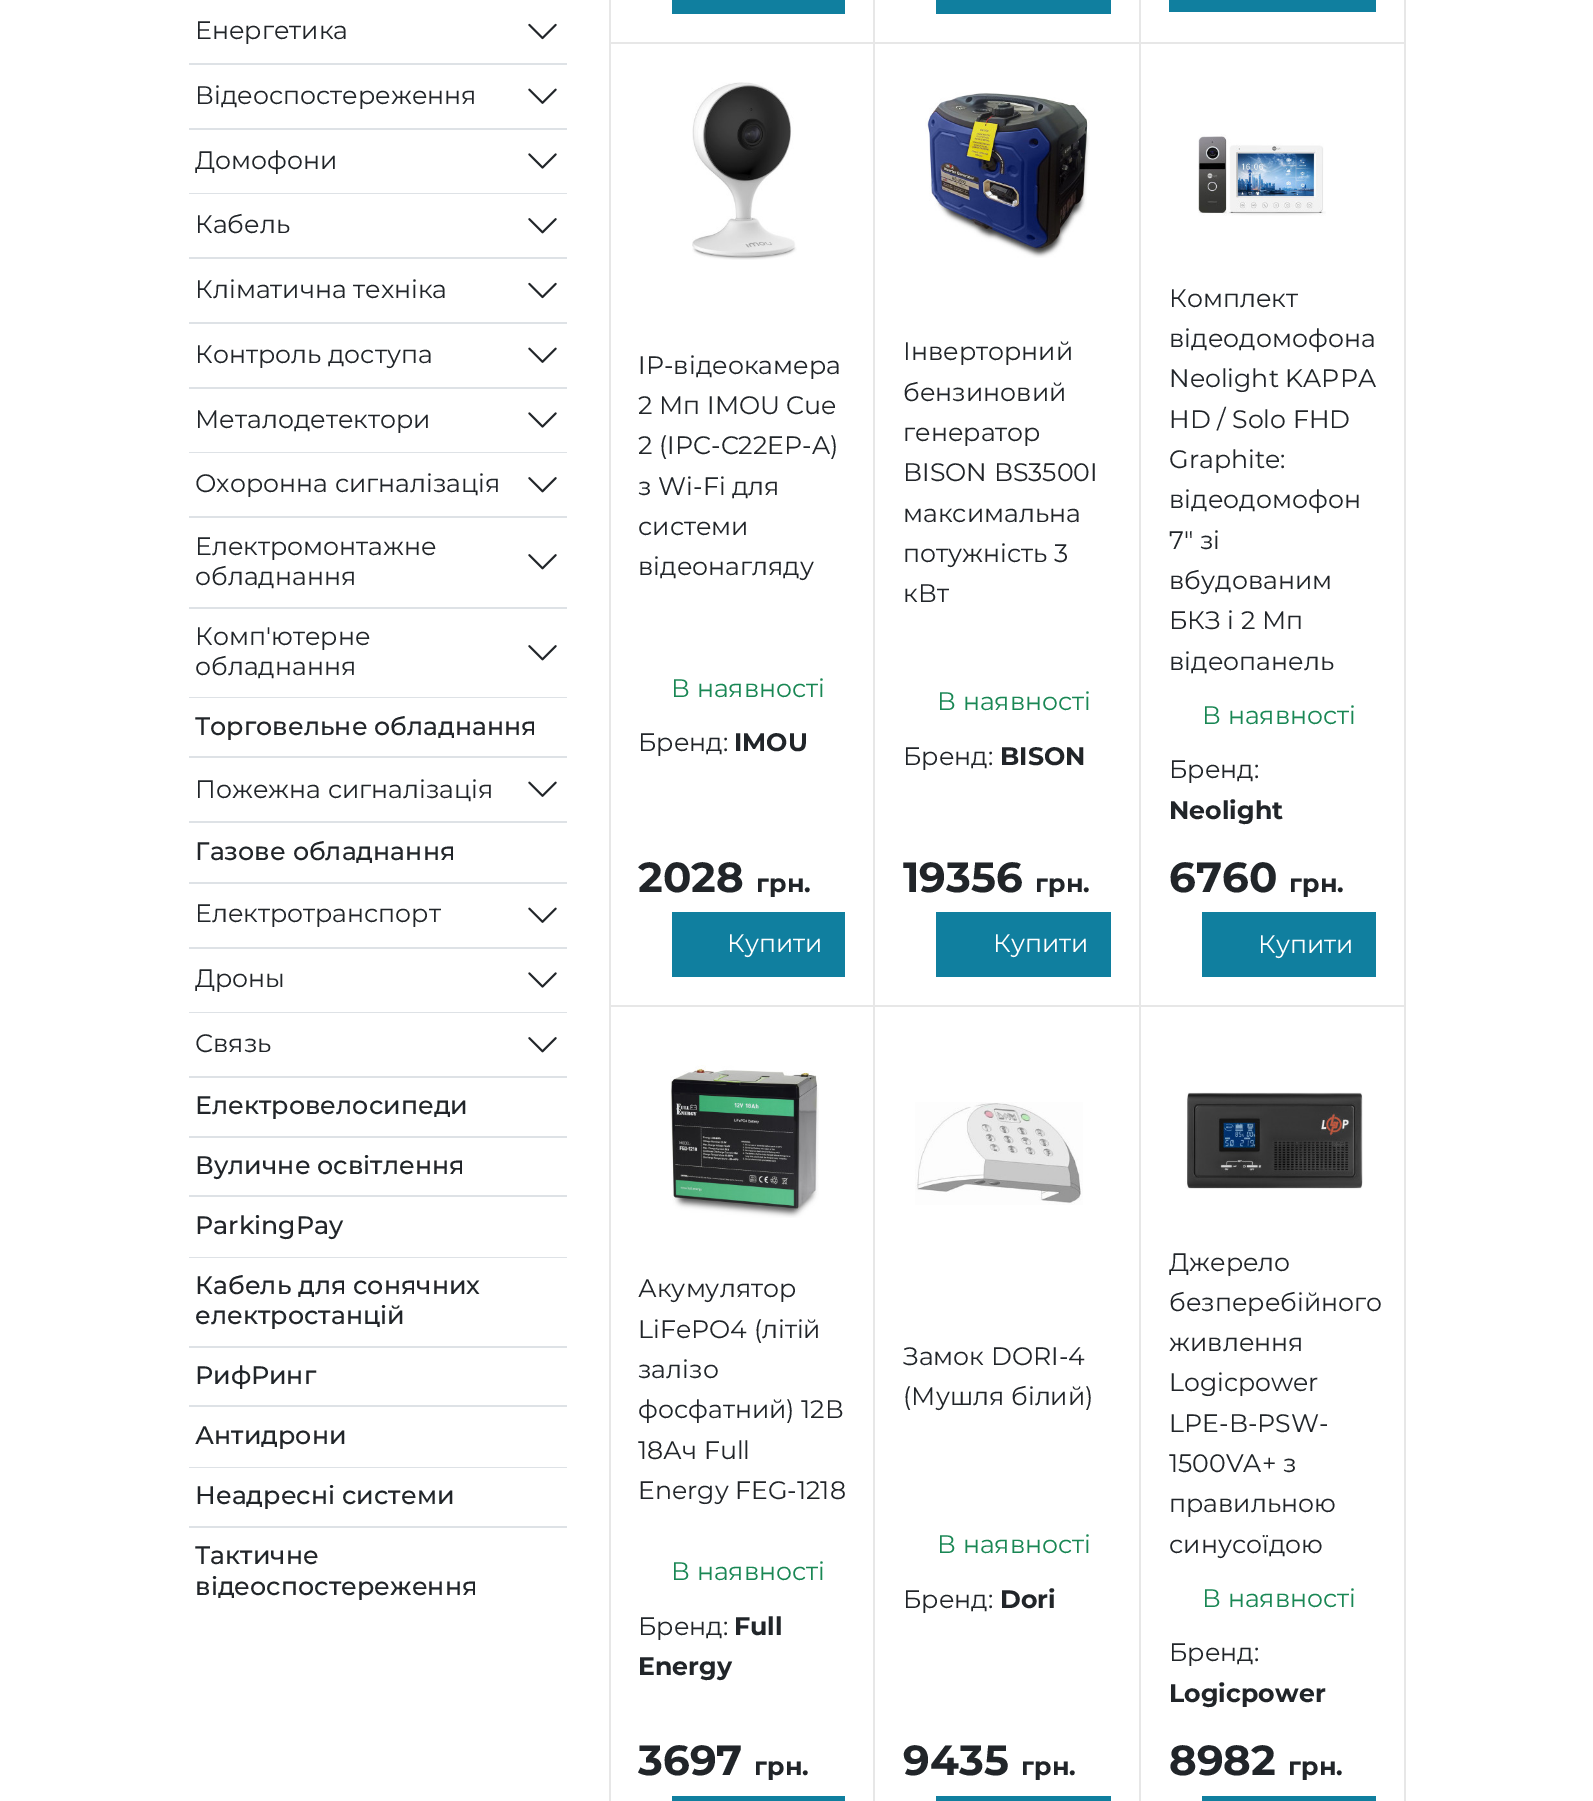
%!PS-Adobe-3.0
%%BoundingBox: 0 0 1593 1801
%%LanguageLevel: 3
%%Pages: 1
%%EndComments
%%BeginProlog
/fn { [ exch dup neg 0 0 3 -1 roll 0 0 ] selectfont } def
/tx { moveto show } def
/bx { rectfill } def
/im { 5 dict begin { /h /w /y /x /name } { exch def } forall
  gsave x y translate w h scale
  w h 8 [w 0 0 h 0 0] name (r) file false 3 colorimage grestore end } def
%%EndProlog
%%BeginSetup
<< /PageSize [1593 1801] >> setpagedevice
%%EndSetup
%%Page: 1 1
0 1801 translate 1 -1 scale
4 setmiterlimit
1 setgray
0 0 1593 1801 bx
0.871 0.886 0.902 setrgbcolor
189 63 378 2 bx
/Montserrat-Regular 25.25 fn
0.129 0.145 0.161 setrgbcolor
(Енергетика) 195 39 tx
(image0.raw) 528 23 29 17 im
0.871 0.886 0.902 setrgbcolor
189 128 378 2 bx
0.129 0.145 0.161 setrgbcolor
(Відеоспостереження) 195 104 tx
(image1.raw) 528 88 29 16 im
0.871 0.886 0.902 setrgbcolor
189 193 378 1 bx
0.129 0.145 0.161 setrgbcolor
(Домофони) 195 169 tx
(image2.raw) 528 153 29 16 im
0.871 0.886 0.902 setrgbcolor
189 257 378 2 bx
0.129 0.145 0.161 setrgbcolor
(Кабель) 195 233 tx
(image3.raw) 528 218 29 16 im
0.871 0.886 0.902 setrgbcolor
189 322 378 2 bx
0.129 0.145 0.161 setrgbcolor
(Кліматична техніка) 195 298 tx
(image0.raw) 528 282 29 17 im
0.871 0.886 0.902 setrgbcolor
189 387 378 2 bx
0.129 0.145 0.161 setrgbcolor
(Контроль доступа) 195 363 tx
(image1.raw) 528 347 29 16 im
0.871 0.886 0.902 setrgbcolor
189 452 378 1 bx
0.129 0.145 0.161 setrgbcolor
(Металодетектори) 195 428 tx
(image2.raw) 528 412 29 16 im
0.871 0.886 0.902 setrgbcolor
189 516 378 2 bx
0.129 0.145 0.161 setrgbcolor
(Охоронна сигналізація) 195 492 tx
(image3.raw) 528 477 29 16 im
0.871 0.886 0.902 setrgbcolor
189 607 378 2 bx
0.129 0.145 0.161 setrgbcolor
(Електромонтажне) 195 555 tx
(image3.raw) 528 554 29 16 im
(обладнання) 195 585 tx
0.871 0.886 0.902 setrgbcolor
189 697 378 1 bx
0.129 0.145 0.161 setrgbcolor
(Комп'ютерне) 195 645 tx
(image3.raw) 528 645 29 16 im
(обладнання) 195 675 tx
0.871 0.886 0.902 setrgbcolor
189 756 378 2 bx
/Montserrat-Medium 25.25 fn
0.129 0.145 0.161 setrgbcolor
(Торговельне обладнання) 195 735 tx
0.871 0.886 0.902 setrgbcolor
189 821 378 2 bx
/Montserrat-Regular 25.25 fn
0.129 0.145 0.161 setrgbcolor
(Пожежна сигналізація) 195 798 tx
(image1.raw) 528 781 29 16 im
0.871 0.886 0.902 setrgbcolor
189 882 378 2 bx
/Montserrat-Medium 25.25 fn
0.129 0.145 0.161 setrgbcolor
(Газове обладнання) 195 860 tx
0.871 0.886 0.902 setrgbcolor
189 947 378 2 bx
/Montserrat-Regular 25.25 fn
0.129 0.145 0.161 setrgbcolor
(Електротранспорт) 195 922 tx
(image1.raw) 528 907 29 16 im
0.871 0.886 0.902 setrgbcolor
189 1012 378 1 bx
0.129 0.145 0.161 setrgbcolor
(Дроны) 195 987 tx
(image2.raw) 528 972 29 16 im
0.871 0.886 0.902 setrgbcolor
189 1076 378 2 bx
0.129 0.145 0.161 setrgbcolor
(Связь) 195 1052 tx
(image3.raw) 528 1037 29 16 im
0.871 0.886 0.902 setrgbcolor
189 1136 378 2 bx
/Montserrat-Medium 25.25 fn
0.129 0.145 0.161 setrgbcolor
(Електровелосипеди) 195 1114 tx
0.871 0.886 0.902 setrgbcolor
189 1195 378 2 bx
0.129 0.145 0.161 setrgbcolor
(Вуличне освітлення) 195 1174 tx
0.871 0.886 0.902 setrgbcolor
189 1257 378 1 bx
0.129 0.145 0.161 setrgbcolor
(ParkingPay) 195 1234 tx
0.871 0.886 0.902 setrgbcolor
189 1346 378 2 bx
0.129 0.145 0.161 setrgbcolor
(Кабель для сонячних) 195 1294 tx
(електростанцій) 195 1324 tx
0.871 0.886 0.902 setrgbcolor
189 1405 378 2 bx
0.129 0.145 0.161 setrgbcolor
(РифРинг) 195 1384 tx
0.871 0.886 0.902 setrgbcolor
189 1467 378 1 bx
0.129 0.145 0.161 setrgbcolor
(Антидрони) 195 1444 tx
0.871 0.886 0.902 setrgbcolor
189 1526 378 2 bx
0.129 0.145 0.161 setrgbcolor
(Неадресні системи) 195 1504 tx
(Тактичне) 195 1564 tx
(відеоспостереження) 195 1595 tx
0.906 setgray
609 0 2 1801 bx
873 0 2 1006 bx
611 42 264 2 bx
0.063 0.498 0.624 setrgbcolor
672 0 173 14 bx
0.906 setgray
1139 0 2 1006 bx
875 42 266 2 bx
0.063 0.498 0.624 setrgbcolor
936 0 175 14 bx
0.906 setgray
1404 0 2 1006 bx
1141 42 264 2 bx
0.063 0.498 0.624 setrgbcolor
1169 0 207 12 bx
0.906 setgray
611 1005 794 2 bx
(image4.raw) 692 82 105 178 im
/Montserrat-Regular 25.25 fn
0.129 0.145 0.161 setrgbcolor
(IP-відеокамера) 638 374 tx
(2 Мп IMOU Cue) 638 414 tx
(2 \(IPC-C22EP-A\)) 638 454 tx
(з Wi-Fi для) 638 495 tx
(системи) 638 535 tx
(відеонагляду) 638 575 tx
0.098 0.529 0.329 setrgbcolor
(В наявності) 671 697 tx
0.129 0.145 0.161 setrgbcolor
(Бренд:) 638 751 tx
/Montserrat-Bold 25.25 fn
(IMOU) 734 751 tx
/Montserrat-Bold 42 fn
(2028) 638 892 tx
/Montserrat-Bold 25.25 fn
(грн.) 756 892 tx
0.063 0.498 0.624 setrgbcolor
672 912 173 65 bx
/Montserrat-Regular 25.25 fn
1 setgray
(Купити) 727 952 tx
(image5.raw) 925 92 165 166 im
0.129 0.145 0.161 setrgbcolor
(Інверторний) 903 360 tx
(бензиновий) 903 401 tx
(генератор) 903 441 tx
(BISON BS3500I) 903 481 tx
(максимальна) 903 522 tx
(потужність 3) 903 562 tx
(кВт) 903 602 tx
0.098 0.529 0.329 setrgbcolor
(В наявності) 937 710 tx
0.129 0.145 0.161 setrgbcolor
(Бренд:) 903 765 tx
/Montserrat-Bold 25.25 fn
(BISON) 1000 765 tx
/Montserrat-Bold 42 fn
(19356) 903 892 tx
/Montserrat-Bold 25.25 fn
(грн.) 1035 892 tx
0.063 0.498 0.624 setrgbcolor
936 912 175 65 bx
/Montserrat-Regular 25.25 fn
1 setgray
(Купити) 993 952 tx
(image6.raw) 1198 134 128 82 im
0.129 0.145 0.161 setrgbcolor
(Комплект) 1169 307 tx
(відеодомофона) 1169 347 tx
(Neolight KAPPA) 1169 387 tx
(HD / Solo FHD) 1169 428 tx
(Graphite:) 1169 468 tx
(відеодомофон) 1169 508 tx
(7" зі) 1169 549 tx
(вбудованим) 1169 589 tx
(БКЗ і 2 Мп) 1169 629 tx
(відеопанель) 1169 670 tx
0.098 0.529 0.329 setrgbcolor
(В наявності) 1202 724 tx
0.129 0.145 0.161 setrgbcolor
(Бренд:) 1169 778 tx
/Montserrat-Bold 25.25 fn
(Neolight) 1169 819 tx
/Montserrat-Bold 42 fn
(6760) 1169 892 tx
/Montserrat-Bold 25.25 fn
(грн.) 1289 892 tx
0.063 0.498 0.624 setrgbcolor
1202 912 174 65 bx
/Montserrat-Regular 25.25 fn
1 setgray
(Купити) 1258 953 tx
0.906 setgray
873 1006 2 795 bx
(image7.raw) 670 1065 149 153 im
0.129 0.145 0.161 setrgbcolor
(Акумулятор) 638 1297 tx
(LiFePO4 \(літій) 638 1338 tx
(залізо) 638 1378 tx
(фосфатний\) 12В) 638 1418 tx
(18Ач Full) 638 1459 tx
(Energy FEG-1218) 638 1499 tx
0.098 0.529 0.329 setrgbcolor
(В наявності) 671 1580 tx
0.129 0.145 0.161 setrgbcolor
(Бренд:) 638 1635 tx
/Montserrat-Bold 25.25 fn
(Full) 734 1635 tx
(Energy) 638 1675 tx
/Montserrat-Bold 42 fn
(3697) 638 1775 tx
/Montserrat-Bold 25.25 fn
(грн.) 754 1775 tx
0.063 0.498 0.624 setrgbcolor
672 1796 173 5 bx
0.906 setgray
1139 1006 2 795 bx
(image8.raw) 915 1102 168 103 im
/Montserrat-Regular 25.25 fn
0.129 0.145 0.161 setrgbcolor
(Замок DORI-4) 903 1365 tx
(\(Мушля білий\)) 903 1405 tx
0.098 0.529 0.329 setrgbcolor
(В наявності) 937 1553 tx
0.129 0.145 0.161 setrgbcolor
(Бренд:) 903 1608 tx
/Montserrat-Bold 25.25 fn
(Dori) 1000 1608 tx
/Montserrat-Bold 42 fn
(9435) 903 1775 tx
/Montserrat-Bold 25.25 fn
(грн.) 1021 1775 tx
0.063 0.498 0.624 setrgbcolor
936 1796 175 5 bx
0.906 setgray
1404 1006 2 795 bx
(image9.raw) 1185 1092 178 97 im
/Montserrat-Regular 25.25 fn
0.129 0.145 0.161 setrgbcolor
(Джерело) 1169 1271 tx
(безперебійного) 1169 1311 tx
(живлення) 1169 1351 tx
(Logicpower) 1169 1391 tx
(LPE-B-PSW-) 1169 1432 tx
(1500VA+ з) 1169 1472 tx
(правильною) 1169 1512 tx
(синусоїдою) 1169 1553 tx
0.098 0.529 0.329 setrgbcolor
(В наявності) 1202 1607 tx
0.129 0.145 0.161 setrgbcolor
(Бренд:) 1169 1661 tx
/Montserrat-Bold 25.25 fn
(Logicpower) 1169 1702 tx
/Montserrat-Bold 42 fn
(8982) 1169 1775 tx
/Montserrat-Bold 25.25 fn
(грн.) 1288 1775 tx
0.063 0.498 0.624 setrgbcolor
1202 1796 174 5 bx
showpage
%%EOF
